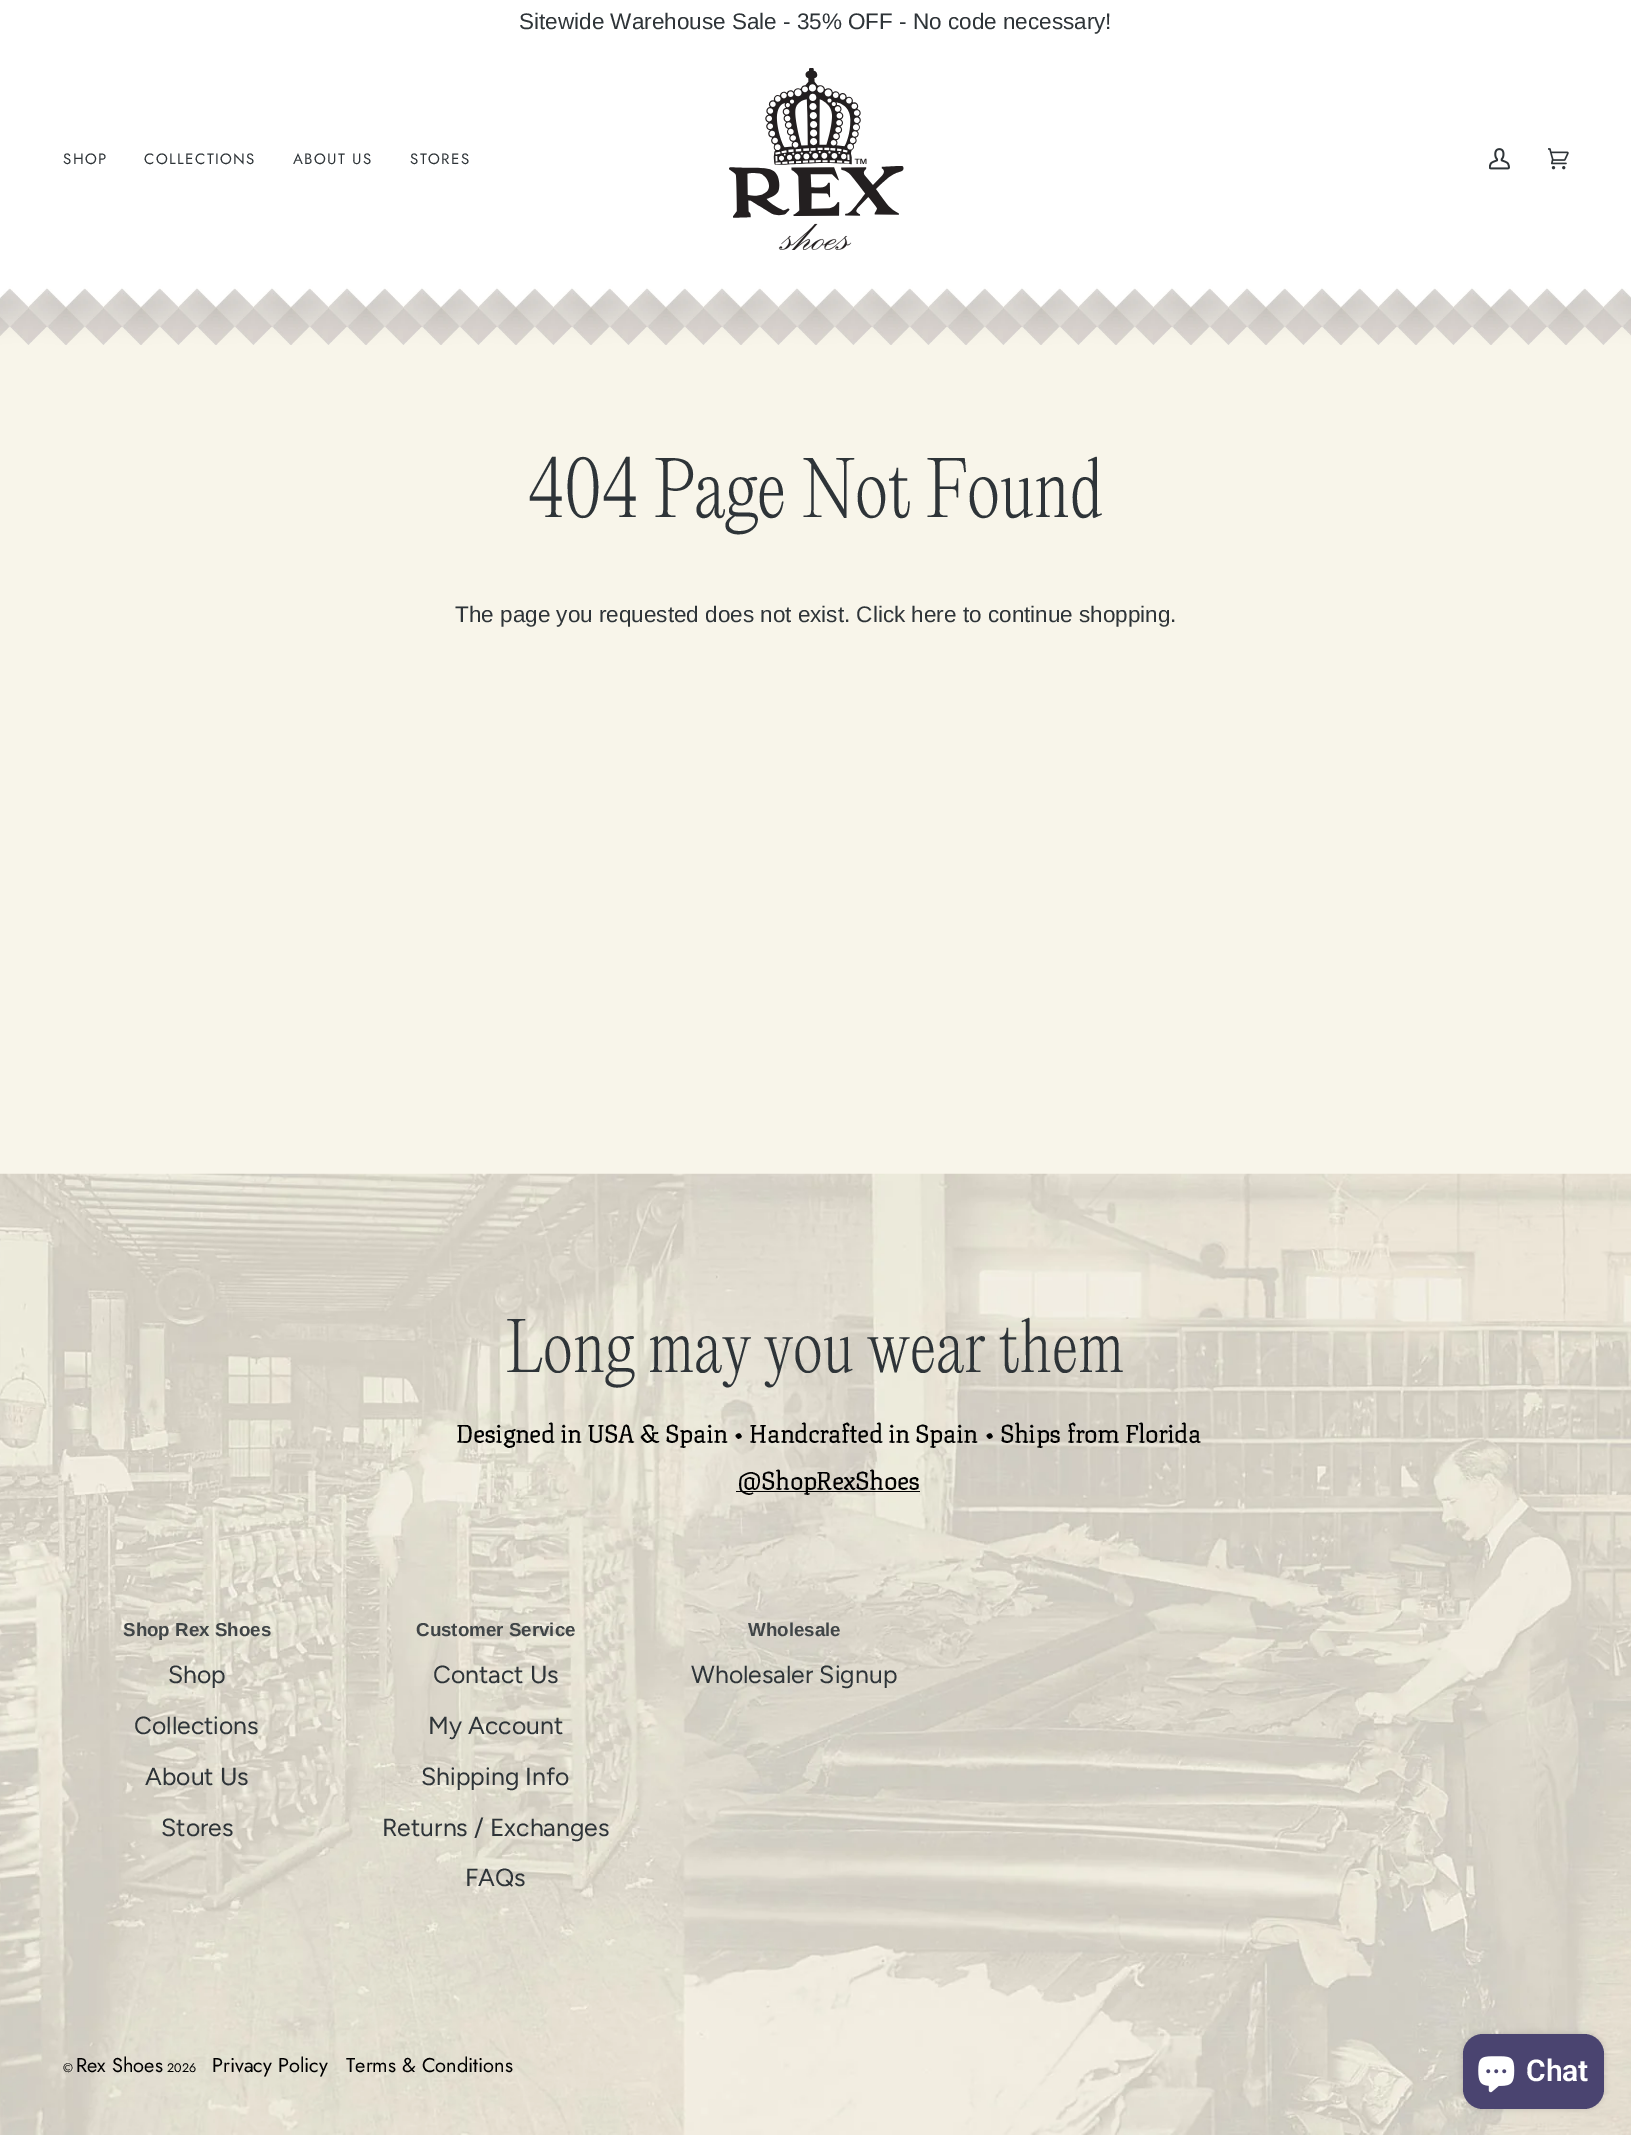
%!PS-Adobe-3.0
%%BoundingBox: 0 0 1631 2135
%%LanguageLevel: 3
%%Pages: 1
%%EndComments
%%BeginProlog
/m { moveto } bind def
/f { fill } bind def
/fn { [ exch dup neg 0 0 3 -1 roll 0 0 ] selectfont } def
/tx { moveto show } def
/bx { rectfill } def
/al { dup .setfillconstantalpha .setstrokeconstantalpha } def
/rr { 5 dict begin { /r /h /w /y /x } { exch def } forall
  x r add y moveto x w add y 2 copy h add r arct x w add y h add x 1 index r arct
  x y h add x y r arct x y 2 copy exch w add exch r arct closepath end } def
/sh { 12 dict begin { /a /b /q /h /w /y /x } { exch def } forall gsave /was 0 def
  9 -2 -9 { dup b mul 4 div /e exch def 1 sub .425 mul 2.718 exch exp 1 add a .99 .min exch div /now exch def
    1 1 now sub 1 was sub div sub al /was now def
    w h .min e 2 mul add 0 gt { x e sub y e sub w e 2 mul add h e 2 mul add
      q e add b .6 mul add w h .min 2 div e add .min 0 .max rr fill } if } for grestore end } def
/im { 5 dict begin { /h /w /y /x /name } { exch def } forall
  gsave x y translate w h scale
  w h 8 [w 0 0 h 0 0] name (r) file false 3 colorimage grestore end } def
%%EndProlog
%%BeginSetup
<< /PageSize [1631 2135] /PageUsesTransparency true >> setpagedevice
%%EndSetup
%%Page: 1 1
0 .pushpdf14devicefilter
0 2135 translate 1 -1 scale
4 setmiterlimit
1 setgray
0 0 1631 2135 bx
/LiberationSans-Regular 22.5 fn
0.18 0.204 0.22 setrgbcolor
(Sitewide Warehouse Sale - 35% OFF - No code necessary!) 519 29 tx
/Jost-Regular 15 fn
63 164 m 1.4 0 (SHOP) ashow
144 164 m 1.4 0 (COLLECTIONS) ashow
293 164 m 1.4 0 (ABOUT US) ashow
410 164 m 1.4 0 (STORES) ashow
(image0.raw) 729 68 175 182 im
(image1.raw) 1489 148 21 22 im
(image2.raw) 1548 148 21 22 im
0.973 0.961 0.918 setrgbcolor
0 308 1631 866 bx
(image3.raw) 0 275 1631 70 im
/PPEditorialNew-ExtraLight 73.75 fn
0.18 0.204 0.22 setrgbcolor
(404 Page Not Found) 528 517 tx
/LiberationSans-Regular 22.5 fn
(The page you requested does not exist. Click here to continue shopping.) 455 622 tx
(image4.raw) 0 1173 1631 962 im
/PPEditorialNew-ExtraLight 66.25 fn
(Long may you wear them) 506 1372 tx
/Texturina-Bold 24.75 fn
0 setgray
(Designed in USA & Spain • Handcrafted in Spain • Ships from Florida) 456 1443 tx
736 1491 184 1 bx
(@ShopRexShoes) 737 1490 tx
/LiberationSans-Bold 18.75 fn
0.251 0.271 0.278 setrgbcolor
(Shop Rex Shoes) 123 1636 tx
/Figtree-Regular 24.75 fn
0.18 0.204 0.22 setrgbcolor
(Shop) 168 1683 tx
(Collections) 134 1734 tx
(About Us) 145 1785 tx
(Stores) 161 1836 tx
/LiberationSans-Bold 18.75 fn
0.251 0.271 0.278 setrgbcolor
(Customer Service) 416 1636 tx
/Figtree-Regular 24.75 fn
0.18 0.204 0.22 setrgbcolor
(Contact Us) 433 1683 tx
(My Account) 428 1734 tx
(Shipping Info) 421 1785 tx
(Returns / Exchanges) 382 1836 tx
(FAQs) 465 1886 tx
/LiberationSans-Bold 18.75 fn
0.251 0.271 0.278 setrgbcolor
(Wholesale) 748 1636 tx
/Figtree-Regular 24.75 fn
0.18 0.204 0.22 setrgbcolor
(Wholesaler Signup) 691 1683 tx
/Jost-Regular 12.5 fn
0 setgray
(©) 63 2072 tx
/Jost-Regular 20 fn
(Rex Shoes) 76 2072 tx
/Jost-Regular 12.5 fn
(2026) 167 2072 tx
/Jost-Regular 20 fn
(Privacy Policy) 212 2072 tx
(Terms & Conditions) 346 2072 tx
1463 2034 141 75 20 3 0.15 sh
0.29 0.267 0.439 setrgbcolor
1463 2034 141 75 20 rr f
(image5.raw) 1478 2056 37 37 im
/Roboto-SemiBold 30 fn
1 setgray
(Chat) 1526 2081 tx
.poppdf14devicefilter showpage
%%EOF
